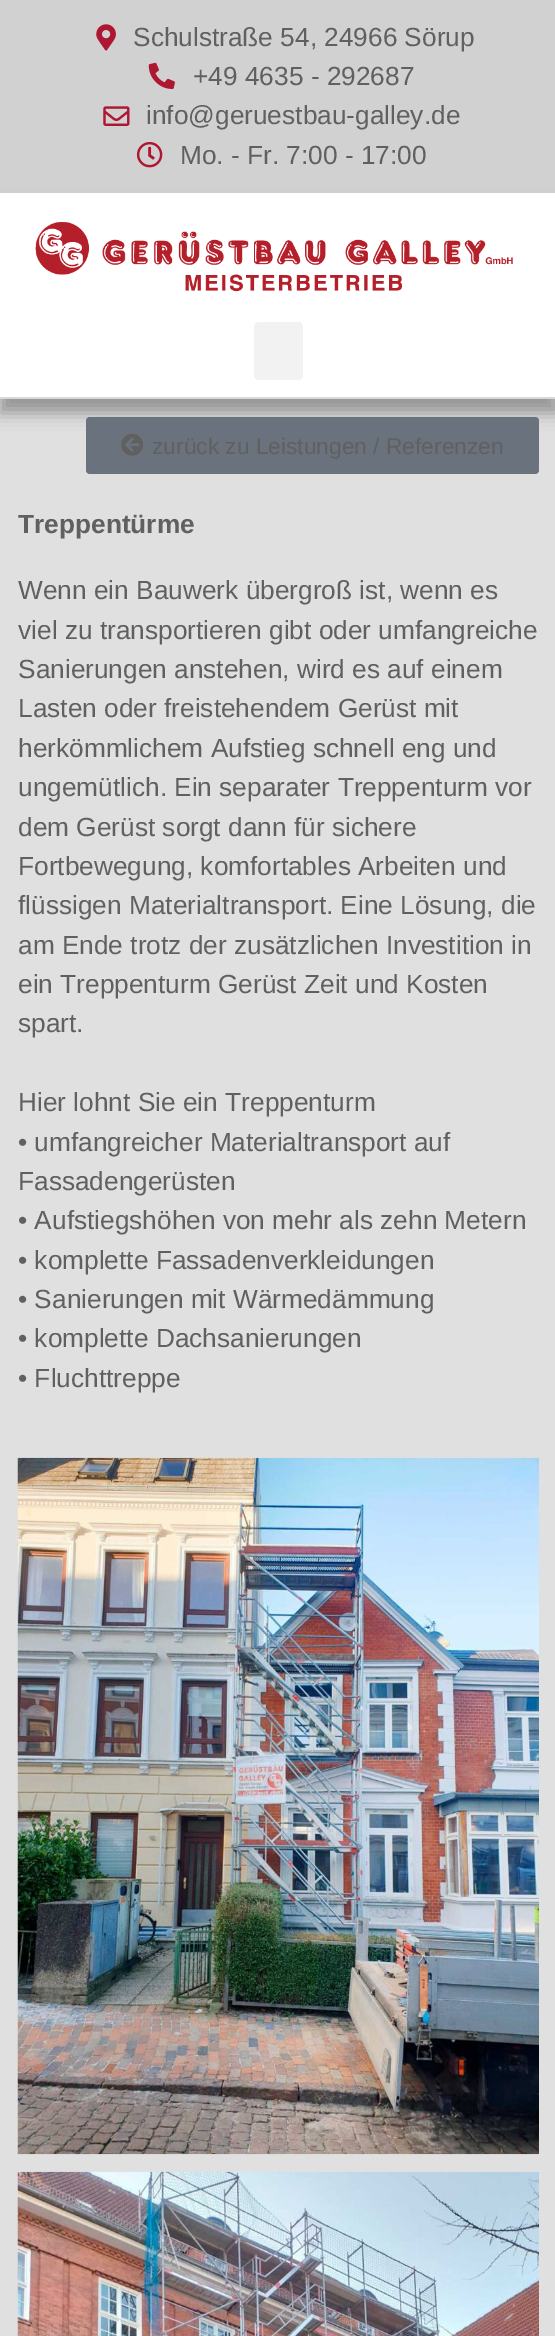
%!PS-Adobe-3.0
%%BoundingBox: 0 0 555 2336
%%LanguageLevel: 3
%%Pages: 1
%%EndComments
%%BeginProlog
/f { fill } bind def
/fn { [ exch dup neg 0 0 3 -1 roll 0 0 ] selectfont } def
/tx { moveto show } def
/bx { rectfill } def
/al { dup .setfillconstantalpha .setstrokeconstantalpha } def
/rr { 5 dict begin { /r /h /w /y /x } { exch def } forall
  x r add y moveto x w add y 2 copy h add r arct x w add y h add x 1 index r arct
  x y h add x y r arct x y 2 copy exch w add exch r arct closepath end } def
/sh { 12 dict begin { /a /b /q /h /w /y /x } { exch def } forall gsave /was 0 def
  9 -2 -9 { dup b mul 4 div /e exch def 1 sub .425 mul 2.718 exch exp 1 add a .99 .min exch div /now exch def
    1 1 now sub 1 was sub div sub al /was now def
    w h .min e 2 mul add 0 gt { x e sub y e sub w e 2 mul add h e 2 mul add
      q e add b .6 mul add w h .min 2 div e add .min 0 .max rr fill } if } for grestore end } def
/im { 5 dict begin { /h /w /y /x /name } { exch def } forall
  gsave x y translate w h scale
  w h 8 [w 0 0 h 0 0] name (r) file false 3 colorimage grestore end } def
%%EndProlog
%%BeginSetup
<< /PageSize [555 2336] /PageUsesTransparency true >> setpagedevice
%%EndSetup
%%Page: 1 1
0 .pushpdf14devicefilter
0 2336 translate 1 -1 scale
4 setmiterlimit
0.878 setgray
0 0 555 2336 bx
0.82 setgray
0 0 555 193 bx
(image0.raw) 96 24 20 27 im
/LiberationSans-Regular 26.25 fn
0.376 setgray
(Schulstraße 54, 24966 Sörup) 133 46 tx
(image1.raw) 148 62 27 27 im
(+49 4635 - 292687) 193 85 tx
(image2.raw) 103 106 27 20 im
(info@geruestbau-galley.de) 146 124 tx
(image3.raw) 136 141 27 27 im
(Mo. - Fr. 7:00 - 17:00) 180 164 tx
0 setgray
0 207 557 206 0 8 0.34 sh
1 setgray
0 193 555 204 bx
0.847 setgray
0 397 555 2 bx
(image4.raw) 35 222 478 70 im
0.949 setgray
254 322 49 58 5 rr f
0.412 0.447 0.49 setrgbcolor
86 417 453 57 4 rr f
(image5.raw) 121 433 22 23 im
/LiberationSans-Regular 22.75 fn
0.376 setgray
(zurück zu Leistungen / Referenzen) 152 454 tx
/LiberationSans-Bold 26.25 fn
(Treppentürme) 18 533 tx
/LiberationSans-Regular 26.25 fn
(Wenn ein Bauwerk übergroß ist, wenn es) 18 599 tx
(viel zu transportieren gibt oder umfangreiche) 18 639 tx
(Sanierungen anstehen, wird es auf einem) 18 678 tx
(Lasten oder freistehendem Gerüst mit) 18 717 tx
(herkömmlichem Aufstieg schnell eng und) 18 757 tx
(ungemütlich. Ein separater Treppenturm vor) 18 796 tx
(dem Gerüst sorgt dann für sichere) 18 836 tx
(Fortbewegung, komfortables Arbeiten und) 18 875 tx
(flüssigen Materialtransport. Eine Lösung, die) 18 914 tx
(am Ende trotz der zusätzlichen Investition in) 18 954 tx
(ein Treppenturm Gerüst Zeit und Kosten) 18 993 tx
(spart.) 18 1032 tx
(Hier lohnt Sie ein Treppenturm) 18 1111 tx
(• umfangreicher Materialtransport auf) 18 1151 tx
(Fassadengerüsten) 18 1190 tx
(• Aufstiegshöhen von mehr als zehn Metern) 18 1229 tx
(• komplette Fassadenverkleidungen) 18 1269 tx
(• Sanierungen mit Wärmedämmung) 18 1308 tx
(• komplette Dachsanierungen) 18 1347 tx
(• Fluchttreppe) 18 1387 tx
(image6.raw) 17 1457 522 698 im
(image7.raw) 17 2171 522 165 im
.poppdf14devicefilter showpage
%%EOF
